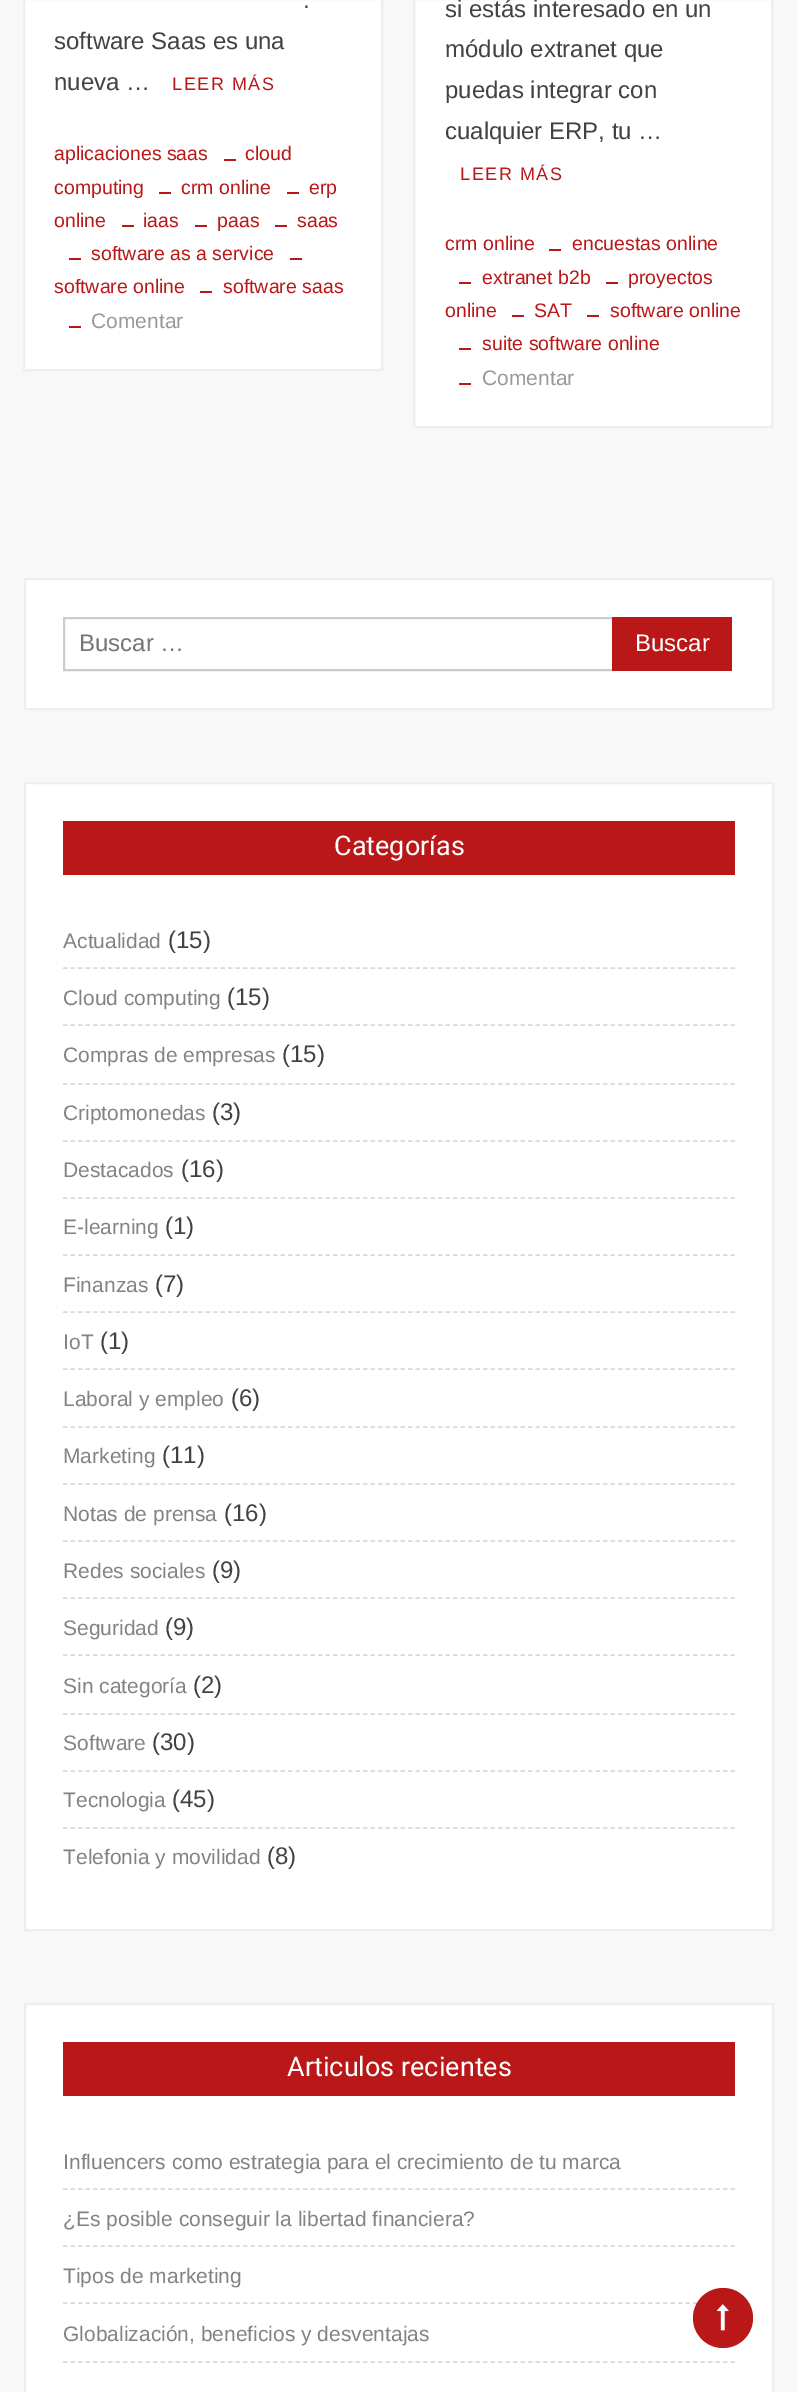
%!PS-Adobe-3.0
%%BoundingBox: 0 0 798 2392
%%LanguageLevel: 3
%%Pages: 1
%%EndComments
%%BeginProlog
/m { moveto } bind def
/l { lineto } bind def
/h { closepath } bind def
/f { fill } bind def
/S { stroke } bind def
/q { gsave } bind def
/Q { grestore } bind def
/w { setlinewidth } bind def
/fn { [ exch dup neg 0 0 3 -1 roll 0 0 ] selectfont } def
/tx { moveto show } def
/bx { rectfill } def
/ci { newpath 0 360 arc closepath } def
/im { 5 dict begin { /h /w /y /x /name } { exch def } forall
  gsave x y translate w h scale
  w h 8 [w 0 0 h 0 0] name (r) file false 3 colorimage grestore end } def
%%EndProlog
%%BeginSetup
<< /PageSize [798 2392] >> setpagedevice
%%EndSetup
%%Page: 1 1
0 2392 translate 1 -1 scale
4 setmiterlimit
0.973 setgray
0 0 798 2392 bx
1 setgray
24 -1 m 382 -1 l 382 370 l 24 370 l h q f Q
0.933 setgray
2 w
S
/Arimo-Regular 24 fn
0.259 setgray
(.) 303 8 tx
(software Saas es una) 54 49 tx
(nueva …) 54 90 tx
/Arimo-Regular 18 fn
0.729 0.094 0.094 setrgbcolor
172 90 m 1.5 0 (LEER MÁS) ashow
/Arimo-Regular 19.5 fn
(aplicaciones saas) 54 160 tx
224 159 12 2 bx
(cloud) 245 160 tx
(computing) 54 194 tx
159 192 12 2 bx
(crm online) 181 194 tx
287 192 12 2 bx
(erp) 309 194 tx
(online) 54 227 tx
122 225 12 2 bx
(iaas) 143 227 tx
195 225 12 2 bx
(paas) 217 227 tx
275 225 12 2 bx
(saas) 297 227 tx
69 258 12 2 bx
(software as a service) 91 260 tx
290 258 12 2 bx
(software online) 54 293 tx
200 291 12 2 bx
(software saas) 223 293 tx
69 326 12 2 bx
/Arimo-Regular 21 fn
0.6 setgray
(Comentar) 91 328 tx
1 setgray
414 -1 m 772 -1 l 772 427 l 414 427 l h q f Q
0.933 setgray
S
/Arimo-Regular 24 fn
0.259 setgray
(si estás interesado en un) 445 17 tx
(módulo extranet que) 445 57 tx
(puedas integrar con) 445 98 tx
(cualquier ERP, tu …) 445 139 tx
/Arimo-Regular 18 fn
0.729 0.094 0.094 setrgbcolor
460 180 m 1.5 0 (LEER MÁS) ashow
/Arimo-Regular 19.5 fn
(crm online) 445 250 tx
549 249 12 2 bx
(encuestas online) 572 250 tx
459 282 12 2 bx
(extranet b2b) 482 284 tx
606 282 12 2 bx
(proyectos) 628 284 tx
(online) 445 317 tx
512 315 12 2 bx
(SAT) 534 317 tx
587 315 12 2 bx
(software online) 610 317 tx
459 348 12 2 bx
(suite software online) 482 350 tx
459 383 12 2 bx
/Arimo-Regular 21 fn
0.6 setgray
(Comentar) 482 385 tx
1 setgray
25 579 m 773 579 l 773 709 l 25 709 l h q f Q
0.933 setgray
S
0.8 setgray
64 618 549 52 rectstroke
/Arimo-Regular 24 fn
0.459 setgray
(Buscar …) 79 651 tx
0.729 0.094 0.094 setrgbcolor
612 617 120 54 bx
1 setgray
(Buscar) 635 651 tx
25 783 m 773 783 l 773 1930 l 25 1930 l h q f Q
0.933 setgray
S
0.729 0.094 0.094 setrgbcolor
63 821 672 54 bx
/Heebo-Regular 27 fn
1 setgray
(Categorías) 334 855 tx
0.851 setgray
1.5 w
[4.5 3] 0 setdash
63 968 m 735 968 l S
/Arimo-Regular 21 fn
0.514 setgray
(Actualidad) 63 948 tx
/Arimo-Regular 24 fn
0.259 setgray
(\(15\)) 168 948 tx
0.851 setgray
63 1025 m 735 1025 l S
/Arimo-Regular 21 fn
0.514 setgray
(Cloud computing) 63 1005 tx
/Arimo-Regular 24 fn
0.259 setgray
(\(15\)) 227 1005 tx
0.851 setgray
63 1084 m 735 1084 l S
/Arimo-Regular 21 fn
0.514 setgray
(Compras de empresas) 63 1062 tx
/Arimo-Regular 24 fn
0.259 setgray
(\(15\)) 282 1062 tx
0.851 setgray
63 1141 m 735 1141 l S
/Arimo-Regular 21 fn
0.514 setgray
(Criptomonedas) 63 1120 tx
/Arimo-Regular 24 fn
0.259 setgray
(\(3\)) 212 1120 tx
0.851 setgray
63 1198 m 735 1198 l S
/Arimo-Regular 21 fn
0.514 setgray
(Destacados) 63 1177 tx
/Arimo-Regular 24 fn
0.259 setgray
(\(16\)) 181 1177 tx
0.851 setgray
63 1255 m 735 1255 l S
/Arimo-Regular 21 fn
0.514 setgray
(E-learning) 63 1234 tx
/Arimo-Regular 24 fn
0.259 setgray
(\(1\)) 165 1234 tx
0.851 setgray
63 1312 m 735 1312 l S
/Arimo-Regular 21 fn
0.514 setgray
(Finanzas) 63 1292 tx
/Arimo-Regular 24 fn
0.259 setgray
(\(7\)) 155 1292 tx
0.851 setgray
63 1369 m 735 1369 l S
/Arimo-Regular 21 fn
0.514 setgray
(IoT) 63 1349 tx
/Arimo-Regular 24 fn
0.259 setgray
(\(1\)) 100 1349 tx
0.851 setgray
63 1427 m 735 1427 l S
/Arimo-Regular 21 fn
0.514 setgray
(Laboral y empleo) 63 1406 tx
/Arimo-Regular 24 fn
0.259 setgray
(\(6\)) 231 1406 tx
0.851 setgray
63 1484 m 735 1484 l S
/Arimo-Regular 21 fn
0.514 setgray
(Marketing) 63 1463 tx
/Arimo-Regular 24 fn
0.259 setgray
(\(11\)) 162 1463 tx
0.851 setgray
63 1541 m 735 1541 l S
/Arimo-Regular 21 fn
0.514 setgray
(Notas de prensa) 63 1521 tx
/Arimo-Regular 24 fn
0.259 setgray
(\(16\)) 224 1521 tx
0.851 setgray
63 1598 m 735 1598 l S
/Arimo-Regular 21 fn
0.514 setgray
(Redes sociales) 63 1578 tx
/Arimo-Regular 24 fn
0.259 setgray
(\(9\)) 212 1578 tx
0.851 setgray
63 1655 m 735 1655 l S
/Arimo-Regular 21 fn
0.514 setgray
(Seguridad) 63 1635 tx
/Arimo-Regular 24 fn
0.259 setgray
(\(9\)) 165 1635 tx
0.851 setgray
63 1714 m 735 1714 l S
/Arimo-Regular 21 fn
0.514 setgray
(Sin categoría) 63 1693 tx
/Arimo-Regular 24 fn
0.259 setgray
(\(2\)) 193 1693 tx
0.851 setgray
63 1771 m 735 1771 l S
/Arimo-Regular 21 fn
0.514 setgray
(Software) 63 1750 tx
/Arimo-Regular 24 fn
0.259 setgray
(\(30\)) 152 1750 tx
0.851 setgray
63 1828 m 735 1828 l S
/Arimo-Regular 21 fn
0.514 setgray
(Tecnologia) 63 1807 tx
/Arimo-Regular 24 fn
0.259 setgray
(\(45\)) 172 1807 tx
/Arimo-Regular 21 fn
0.514 setgray
(Telefonia y movilidad) 63 1864 tx
/Arimo-Regular 24 fn
0.259 setgray
(\(8\)) 267 1864 tx
1 setgray
25 2004 m 773 2004 l 773 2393 l 25 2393 l h q f Q
0.933 setgray
2 w
[] 0 setdash
S
0.729 0.094 0.094 setrgbcolor
63 2042 672 54 bx
/Heebo-Regular 27 fn
1 setgray
(Articulos recientes) 287 2076 tx
0.851 setgray
1.5 w
[4.5 3] 0 setdash
63 2189 m 735 2189 l S
/Arimo-Regular 21 fn
0.514 setgray
(Influencers como estrategia para el crecimiento de tu marca) 63 2169 tx
0.851 setgray
63 2246 m 735 2246 l S
0.514 setgray
(¿Es posible conseguir la libertad financiera?) 63 2226 tx
0.851 setgray
63 2303 m 735 2303 l S
0.514 setgray
(Tipos de marketing) 63 2283 tx
0.851 setgray
63 2362 m 735 2362 l S
0.514 setgray
(Globalización, beneficios y desventajas) 63 2341 tx
0.729 0.094 0.094 setrgbcolor
723 2318 30 ci f
(image0.raw) 717 2304 12 27 im
showpage
%%EOF
